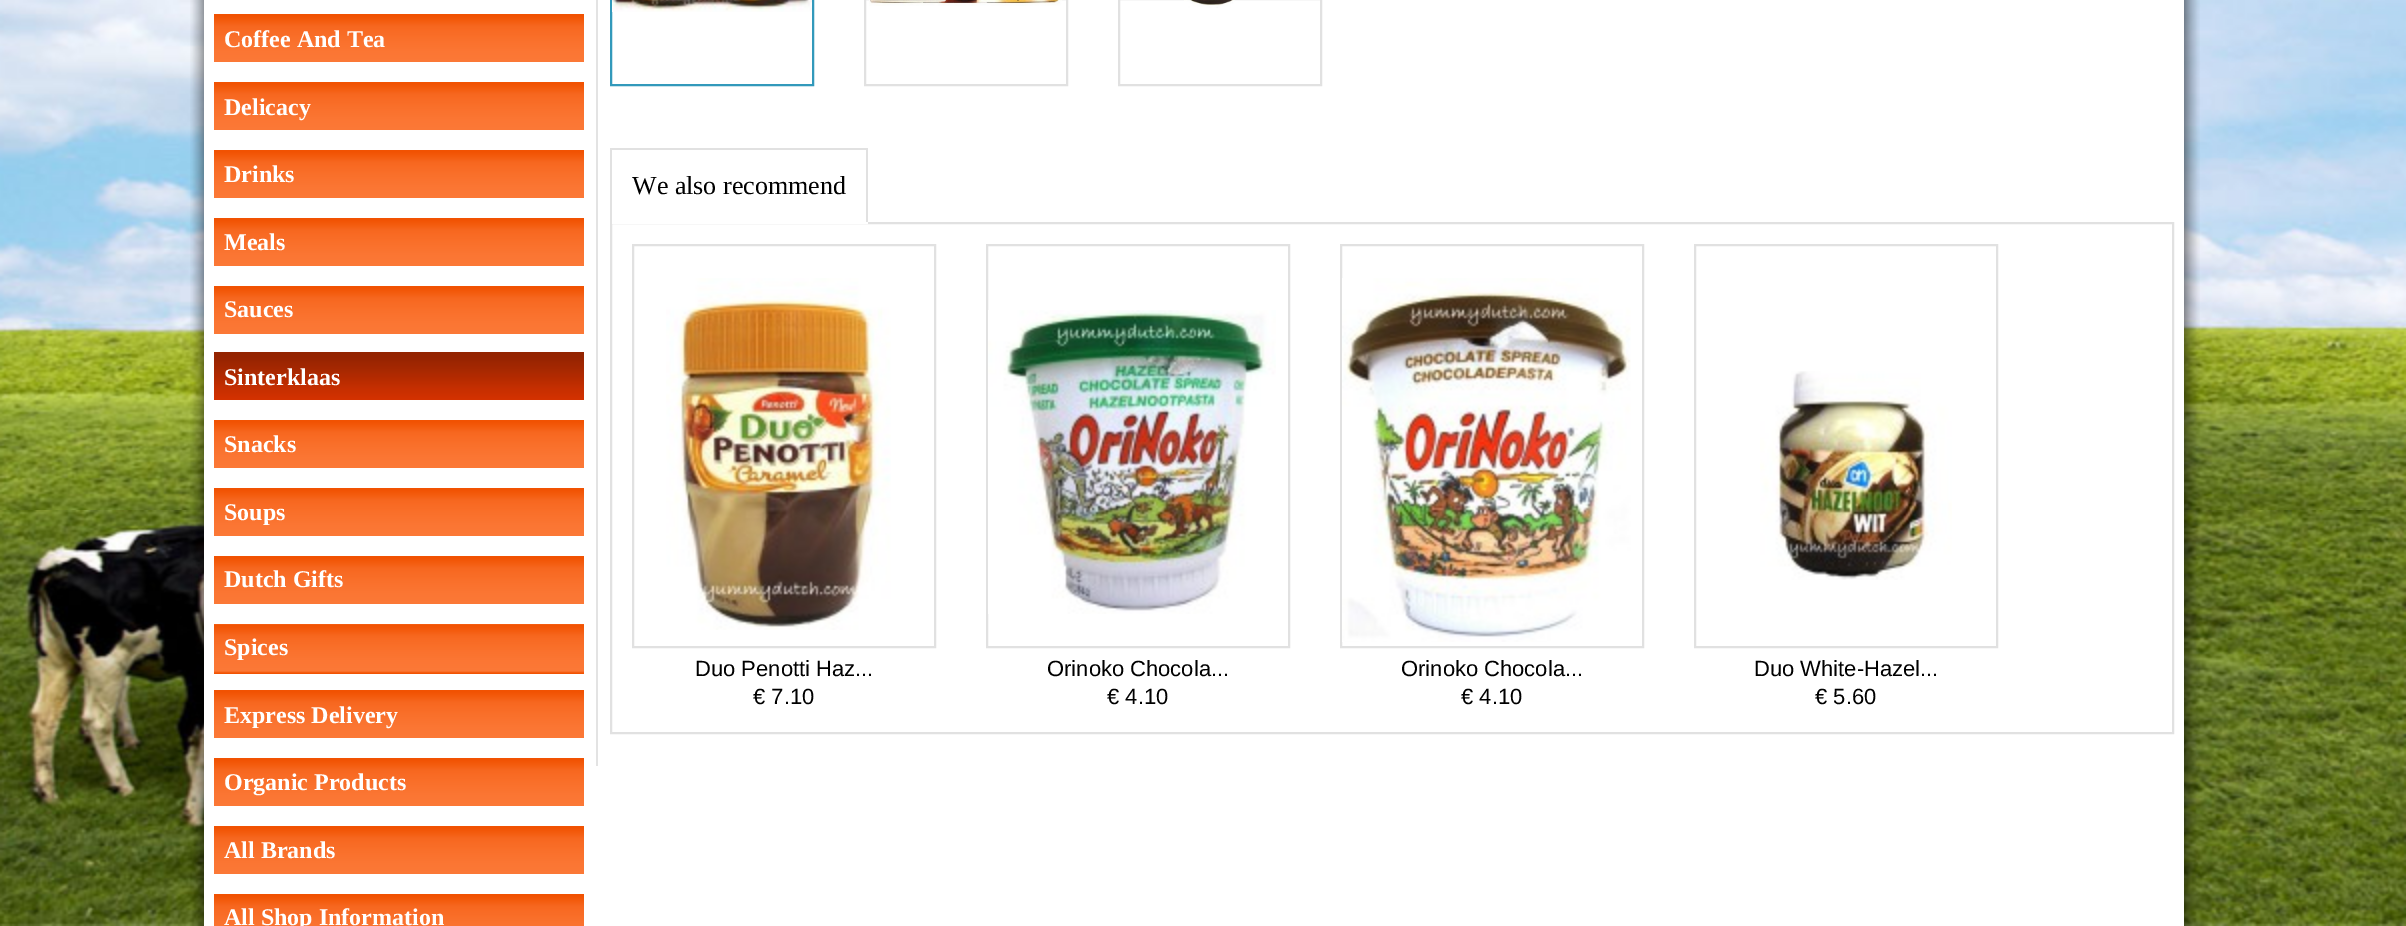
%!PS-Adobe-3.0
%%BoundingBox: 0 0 2406 926
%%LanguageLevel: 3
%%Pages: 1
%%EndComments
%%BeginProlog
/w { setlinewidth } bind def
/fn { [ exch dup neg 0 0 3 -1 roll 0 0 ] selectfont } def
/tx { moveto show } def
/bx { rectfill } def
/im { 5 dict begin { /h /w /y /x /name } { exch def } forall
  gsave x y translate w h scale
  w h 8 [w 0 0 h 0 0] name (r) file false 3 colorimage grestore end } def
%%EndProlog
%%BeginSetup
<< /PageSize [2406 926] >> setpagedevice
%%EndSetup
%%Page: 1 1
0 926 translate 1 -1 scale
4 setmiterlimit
1 setgray
0 0 2406 926 bx
(image0.raw) 0 0 2406 926 im
(image1.raw) 190 0 2010 926 im
204 0 1980 926 bx
(image2.raw) 214 14 370 48 im
/LiberationSerif-Bold 24 fn
(Coffee And Tea) 224 47 tx
(image2.raw) 214 82 370 48 im
(Delicacy) 224 115 tx
(image2.raw) 214 150 370 48 im
(Drinks) 224 182 tx
(image2.raw) 214 218 370 48 im
(Meals) 224 250 tx
(image2.raw) 214 286 370 48 im
(Sauces) 224 317 tx
(image3.raw) 214 352 370 48 im
(Sinterklaas) 224 385 tx
(image2.raw) 214 420 370 48 im
(Snacks) 224 452 tx
(image2.raw) 214 488 370 48 im
(Soups) 224 520 tx
(image2.raw) 214 556 370 48 im
(Dutch Gifts) 224 587 tx
(image4.raw) 214 624 370 50 im
(Spices) 224 655 tx
(image2.raw) 214 690 370 48 im
(Express Delivery) 224 723 tx
(image2.raw) 214 758 370 48 im
(Organic Products) 224 790 tx
(image2.raw) 214 826 370 48 im
(All Brands) 224 858 tx
(image5.raw) 214 894 370 32 im
(All Shop Information) 224 925 tx
0.89 setgray
596 0 2 766 bx
0.196 0.6 0.733 setrgbcolor
2 w
611 -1 202 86 rectstroke
(image6.raw) 612 0 200 12 im
0.882 setgray
865 -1 202 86 rectstroke
(image7.raw) 869 0 193 6 im
1119 -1 202 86 rectstroke
(image8.raw) 1184 0 51 8 im
611 223 1562 510 rectstroke
610 148 258 2 bx
866 148 2 76 bx
1 setgray
610 222 258 2 bx
0.882 setgray
610 148 2 76 bx
/LiberationSerif-Regular 26 fn
0 setgray
(We also recommend) 632 194 tx
0.882 setgray
633 245 302 402 rectstroke
(image9.raw) 666 278 225 352 im
/LiberationSans-Regular 22 fn
0 setgray
(Duo Penotti Haz...) 695 676 tx
(€ 7.10) 753 704 tx
0.882 setgray
987 245 302 402 rectstroke
(image10.raw) 988 310 288 304 im
0 setgray
(Orinoko Chocola...) 1047 676 tx
(€ 4.10) 1107 704 tx
0.882 setgray
1341 245 302 402 rectstroke
(image11.raw) 1342 278 289 364 im
0 setgray
(Orinoko Chocola...) 1401 676 tx
(€ 4.10) 1461 704 tx
0.882 setgray
1695 245 302 402 rectstroke
(image12.raw) 1760 371 192 209 im
0 setgray
(Duo White-Hazel...) 1754 676 tx
(€ 5.60) 1815 704 tx
showpage
%%EOF
